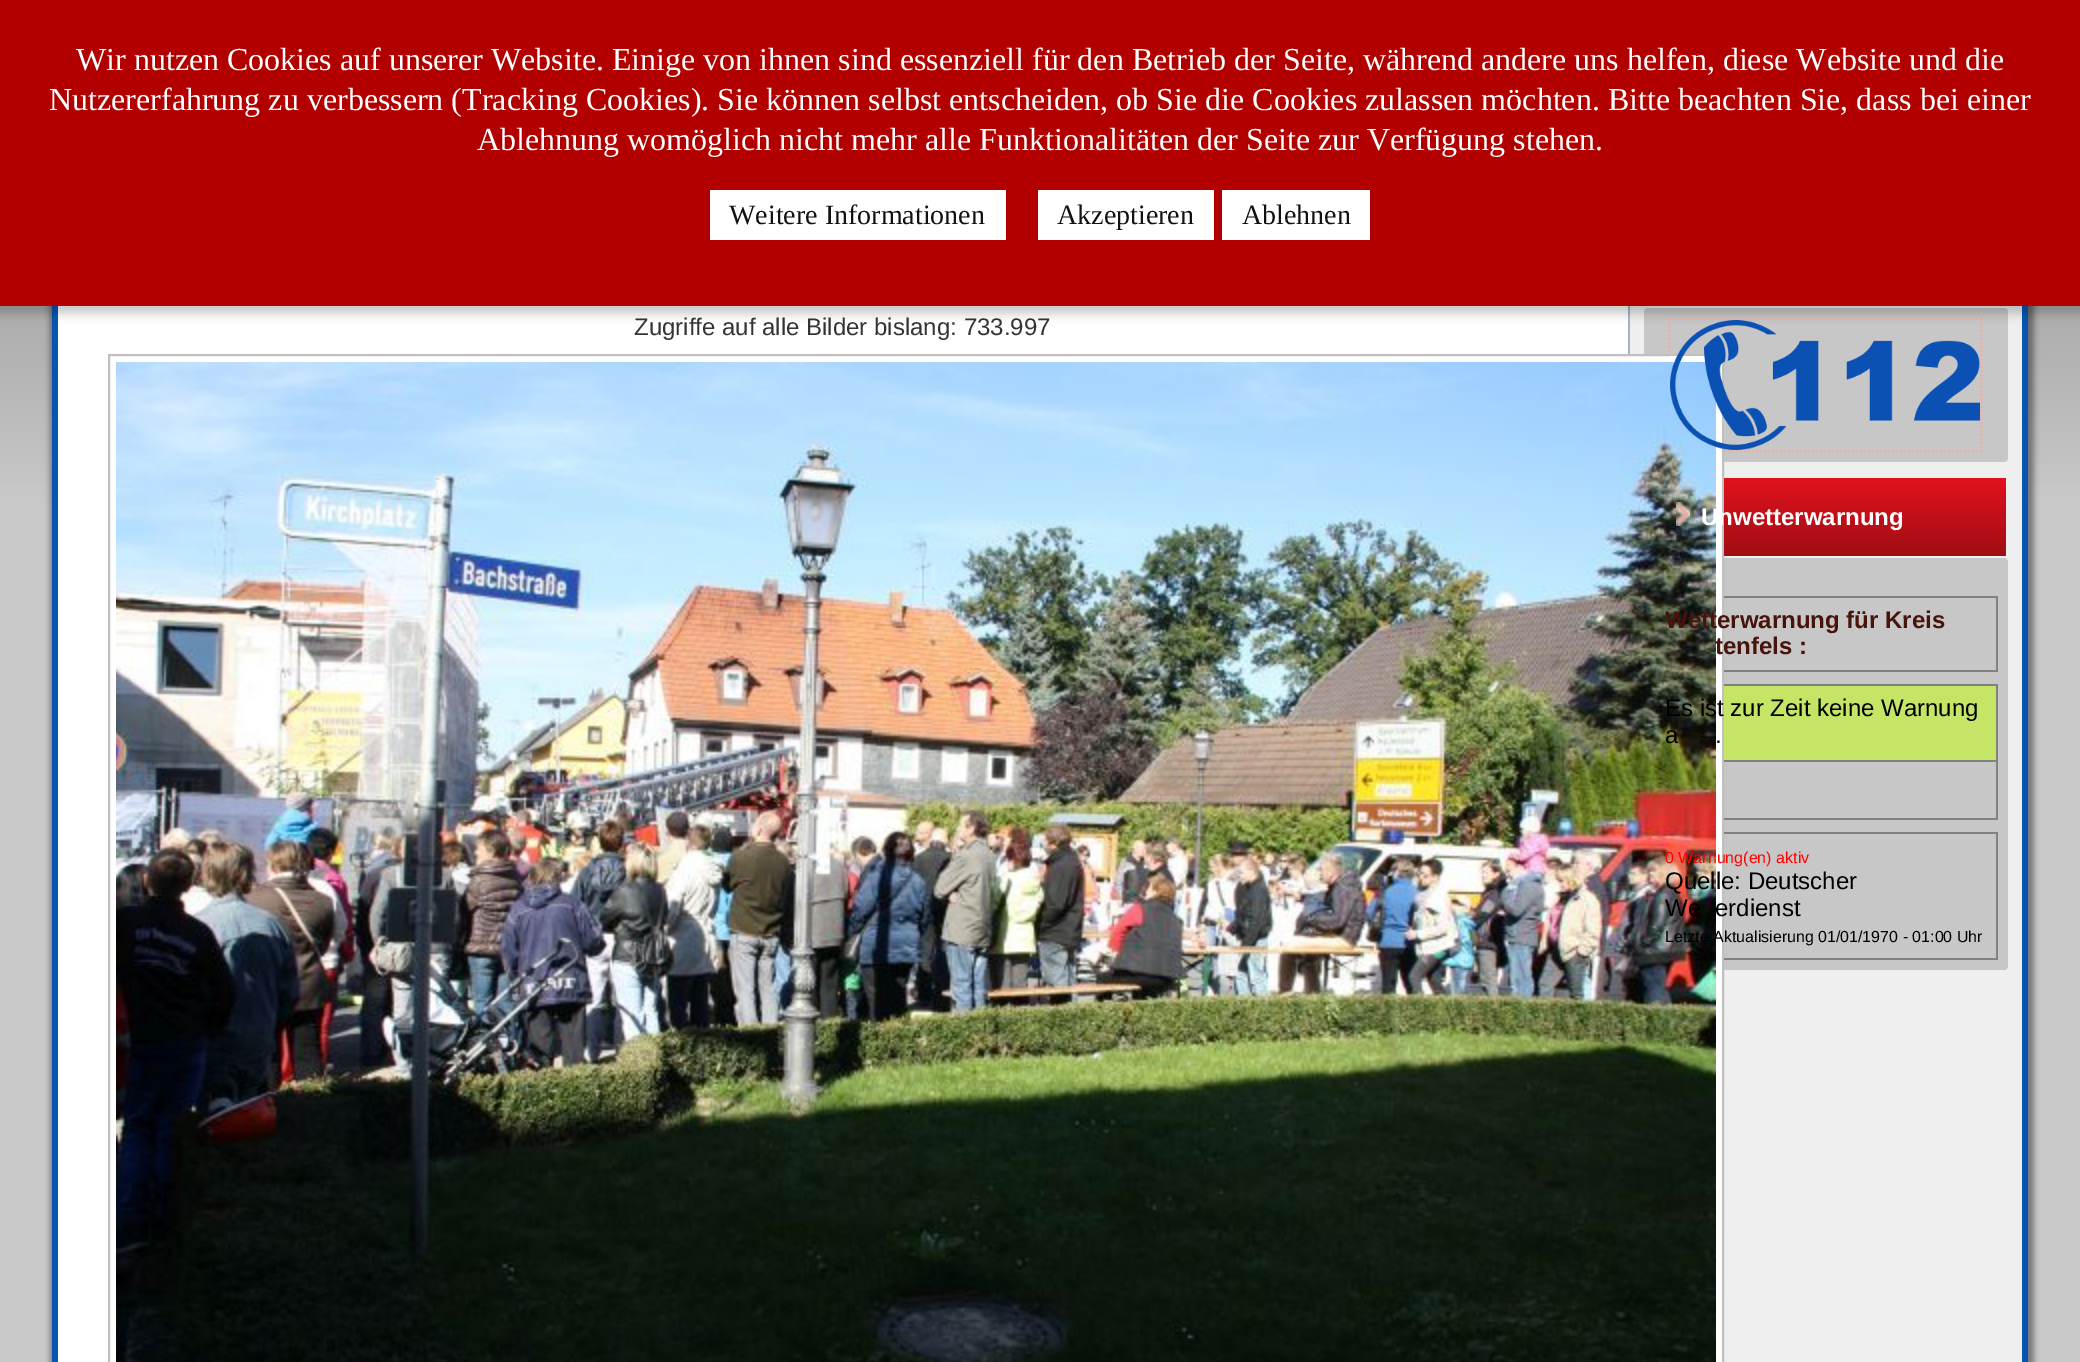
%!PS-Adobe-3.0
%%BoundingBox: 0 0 2080 1362
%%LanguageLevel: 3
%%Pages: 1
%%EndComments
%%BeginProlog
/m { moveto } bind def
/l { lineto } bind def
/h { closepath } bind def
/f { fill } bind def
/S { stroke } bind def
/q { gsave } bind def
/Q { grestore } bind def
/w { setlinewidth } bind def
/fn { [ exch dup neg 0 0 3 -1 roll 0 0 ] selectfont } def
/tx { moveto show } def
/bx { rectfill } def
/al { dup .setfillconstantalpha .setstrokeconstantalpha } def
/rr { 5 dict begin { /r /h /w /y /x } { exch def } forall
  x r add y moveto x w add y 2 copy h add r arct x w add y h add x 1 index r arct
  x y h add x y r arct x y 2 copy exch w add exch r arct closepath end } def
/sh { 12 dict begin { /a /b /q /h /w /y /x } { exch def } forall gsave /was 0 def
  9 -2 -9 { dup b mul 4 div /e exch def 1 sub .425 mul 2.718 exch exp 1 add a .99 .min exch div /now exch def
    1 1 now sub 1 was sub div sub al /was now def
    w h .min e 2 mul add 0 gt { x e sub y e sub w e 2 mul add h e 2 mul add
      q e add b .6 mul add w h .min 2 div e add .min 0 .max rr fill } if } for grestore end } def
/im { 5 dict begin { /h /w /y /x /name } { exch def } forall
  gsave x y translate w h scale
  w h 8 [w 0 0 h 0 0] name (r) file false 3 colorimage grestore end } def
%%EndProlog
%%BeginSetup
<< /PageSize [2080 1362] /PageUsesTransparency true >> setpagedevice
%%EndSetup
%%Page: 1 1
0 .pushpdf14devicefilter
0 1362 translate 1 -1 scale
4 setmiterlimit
1 setgray
0 0 2080 1362 bx
q 0 306 m 2080 306 l 2080 1362 l 0 1362 l h clip newpath
<< /ShadingType 2 /ColorSpace /DeviceRGB /Coords [1040 0 1040 1362] /Extend [true true] /Function << /FunctionType 3 /Domain [0 1] /Functions [<< /FunctionType 2 /Domain [0 1] /C0 [0.502 0.502 0.502] /C1 [0.788 0.788 0.788] /N 1 >> << /FunctionType 2 /Domain [0 1] /C0 [0.788 0.788 0.788] /C1 [0.788 0.788 0.788] /N 1 >>] /Bounds [0.37] /Encode [0 1 0 1] >> >> shfill Q
0 setgray
50 -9 1984 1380 0 3 0.4 sh
1 setgray
58 306 1570 1056 bx
0.016 0.337 0.686 setrgbcolor
2022 306 6 1056 bx
52 306 6 1056 bx
0.937 setgray
1630 306 392 1056 bx
0.639 0.706 0.784 setrgbcolor
1628 306 2 48 bx
0.78 setgray
1644 308 364 154 4 rr f
0.949 0.678 0.631 setrgbcolor
2 w
[2 2] 0 setdash
1668 319 m 1982 319 l S
1981 318 m 1981 452 l S
1668 451 m 1982 451 l S
1669 318 m 1669 452 l S
0.78 setgray
1644 558 364 412 4 rr f
1 setgray
1628 356 94 1006 bx
0.753 setgray
[] 0 setdash
109 355 1614 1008 rectstroke
(image0.raw) 116 362 1600 1000 im
(image1.raw) 1670 320 310 130 im
0 setgray
-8 -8 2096 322 0 5 0.21 sh
0.698 0 0 setrgbcolor
0 0 2080 306 bx
/LiberationSerif-Regular 32 fn
1 setgray
(Wir nutzen Cookies auf unserer Website. Einige von ihnen sind essenziell für den Betrieb der Seite, während andere uns helfen, diese Website und die) 76 70 tx
(Nutzererfahrung zu verbessern \(Tracking Cookies\). Sie können selbst entscheiden, ob Sie die Cookies zulassen möchten. Bitte beachten Sie, dass bei einer) 49 110 tx
(Ablehnung womöglich nicht mehr alle Funktionalitäten der Seite zur Verfügung stehen.) 477 150 tx
710 190 296 50 bx
/LiberationSerif-Regular 28 fn
0.067 setgray
(Weitere Informationen) 729 224 tx
1 setgray
1038 190 176 50 bx
0.067 setgray
(Akzeptieren) 1057 224 tx
1 setgray
1222 190 148 50 bx
0.067 setgray
(Ablehnen) 1242 224 tx
/LiberationSans-Regular 24 fn
0.2 setgray
(Zugriffe auf alle Bilder bislang: 733.997) 634 335 tx
q 1724 478 m 2006 478 l 2006 556 l 1724 556 l h clip newpath
<< /ShadingType 2 /ColorSpace /DeviceRGB /Coords [1826 478 1826 556] /Extend [true true] /Function << /FunctionType 2 /Domain [0 1] /C0 [0.886 0.071 0.114] /C1 [0.627 0.051 0.078] /N 1 >> >> shfill Q
(image2.raw) 1676 502 14 24 im
/LiberationSans-Bold 24 fn
1 setgray
(Unwetterwarnung) 1701 525 tx
0.502 setgray
1724 596 274 2 bx
1996 596 2 76 bx
1724 670 274 2 bx
0.278 0.075 0.039 setrgbcolor
(Wetterwarnung für Kreis) 1665 628 tx
(tenfels :) 1715 654 tx
0.773 0.898 0.4 setrgbcolor
1724 686 272 74 bx
0.502 setgray
1724 684 274 2 bx
1724 760 274 2 bx
1996 760 2 60 bx
1996 684 2 78 bx
/LiberationSans-Regular 24 fn
0 setgray
(Es ist zur Zeit keine Warnung) 1665 716 tx
(a) 1665 743 tx
(.) 1715 743 tx
0.502 setgray
1724 818 274 2 bx
1724 832 274 2 bx
1996 832 2 128 bx
1724 958 274 2 bx
/LiberationSans-Regular 16 fn
1 0 0 setrgbcolor
(0 Warnung\(en\) aktiv) 1665 863 tx
/LiberationSans-Regular 24 fn
0 setgray
(Quelle: Deutscher) 1665 889 tx
(We) 1665 916 tx
(erdienst) 1715 916 tx
/LiberationSans-Regular 16 fn
(Letzte Aktualisierung 01/01/1970 - 01:00 Uhr) 1665 942 tx
.poppdf14devicefilter showpage
%%EOF
